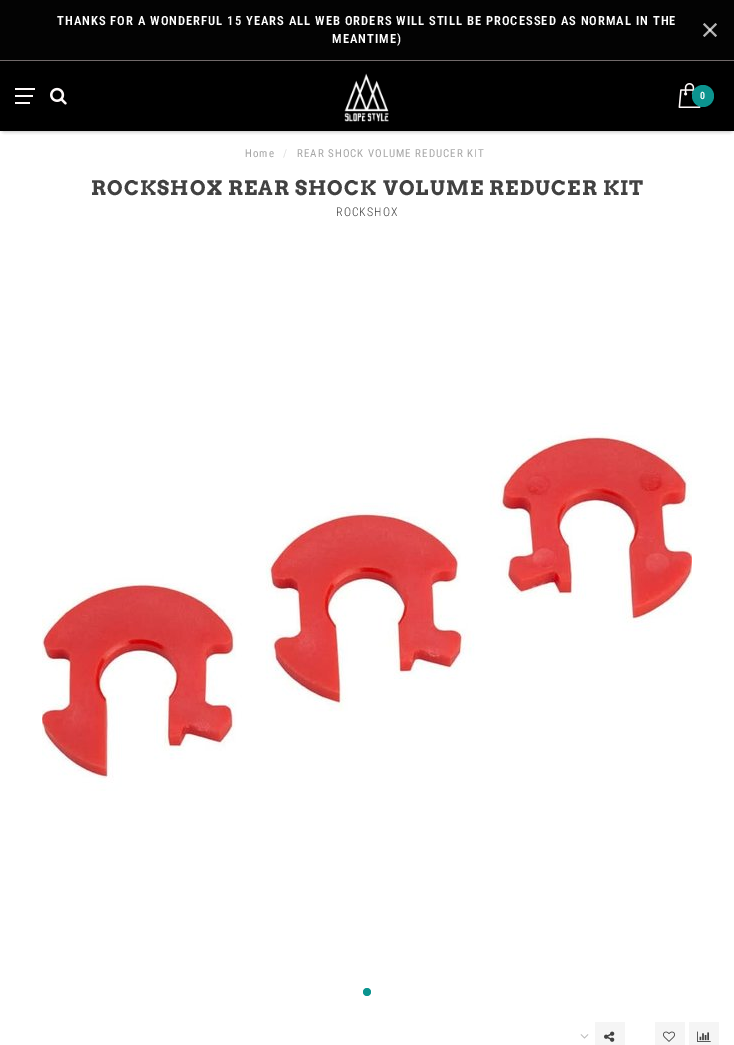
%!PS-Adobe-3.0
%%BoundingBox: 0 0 734 1045
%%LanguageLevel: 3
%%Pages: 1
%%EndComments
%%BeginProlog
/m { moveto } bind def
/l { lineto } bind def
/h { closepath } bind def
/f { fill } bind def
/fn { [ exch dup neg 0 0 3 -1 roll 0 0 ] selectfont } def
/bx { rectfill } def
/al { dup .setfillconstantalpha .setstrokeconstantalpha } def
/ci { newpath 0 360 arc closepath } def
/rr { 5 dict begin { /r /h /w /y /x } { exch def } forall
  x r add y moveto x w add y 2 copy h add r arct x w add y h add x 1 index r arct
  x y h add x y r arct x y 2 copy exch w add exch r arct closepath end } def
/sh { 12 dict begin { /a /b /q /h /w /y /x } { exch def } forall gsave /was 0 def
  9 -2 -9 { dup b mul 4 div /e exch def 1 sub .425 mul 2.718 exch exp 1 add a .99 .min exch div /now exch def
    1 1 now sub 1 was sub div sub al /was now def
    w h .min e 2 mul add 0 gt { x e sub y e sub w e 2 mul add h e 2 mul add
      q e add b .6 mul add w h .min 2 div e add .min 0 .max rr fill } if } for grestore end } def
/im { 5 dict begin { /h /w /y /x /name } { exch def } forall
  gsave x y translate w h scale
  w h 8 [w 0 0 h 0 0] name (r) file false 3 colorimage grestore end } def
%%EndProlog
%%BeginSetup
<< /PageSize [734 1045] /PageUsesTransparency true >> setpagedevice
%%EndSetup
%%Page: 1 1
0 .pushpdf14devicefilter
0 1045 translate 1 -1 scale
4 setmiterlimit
1 setgray
0 0 734 1045 bx
0.443 0.416 0.416 setrgbcolor
0 60 734 1 bx
0 setgray
4 67 726 62 0 2.5 1 sh
0.012 setgray
0 0 734 60 bx
/RobotoCondensed-SemiBold 12.6 fn
1 setgray
57 25 m 1 0 (THANKS FOR A WONDERFUL 15 YEARS ALL WEB ORDERS WILL STILL BE PROCESSED AS NORMAL IN THE) ashow
0.702 setgray
704.5 23 m 717 35.5 l 715.5 37 l 703 24.5 l h f
0.7 al
1 setgray
703 35.5 m 715.5 23 l 717 24.5 l 704.5 37 l h f
1 al
332 43 m 1 0 (MEANTIME\)) ashow
0 setgray
0 61 734 70 bx
1 0.98 0.98 setrgbcolor
15 88 20 2 bx
15 95 18 2 bx
15 102 15 2 bx
(image0.raw) 50 87 17 18 im
(image1.raw) 344 73 45 49 im
(image2.raw) 678 83 23 25 im
0.047 0.58 0.561 setrgbcolor
703 96 11 ci f
/RobotoCondensed-SemiBold 10 fn
1 setgray
700 99 m 1 0 (0) ashow
/RobotoCondensed-Regular 11 fn
0.647 setgray
245 157 m 1 0 (Home) ashow
0.867 setgray
283 157 m 1 0 (/) ashow
0.647 setgray
297 157 m 1 0 (REAR SHOCK VOLUME REDUCER KIT) ashow
/Arvo-Bold 20 fn
0.255 setgray
91 195 m 1 0 (ROCKSHOX REAR SHOCK VOLUME REDUCER KIT) ashow
/RobotoCondensed-Light 12 fn
336 216 m 1 0 (ROCKSHOX) ashow
(image3.raw) 42 423 650 368 im
0.047 0.58 0.561 setrgbcolor
367 992 4 ci f
(image4.raw) 580 1034 9 5 im
0.961 setgray
595 1022 30 23 bx
(image5.raw) 604 1031 11 11 im
655 1022 30 23 bx
(image6.raw) 663 1031 12 11 im
689 1022 30 23 bx
(image7.raw) 697 1031 14 11 im
.poppdf14devicefilter showpage
%%EOF
